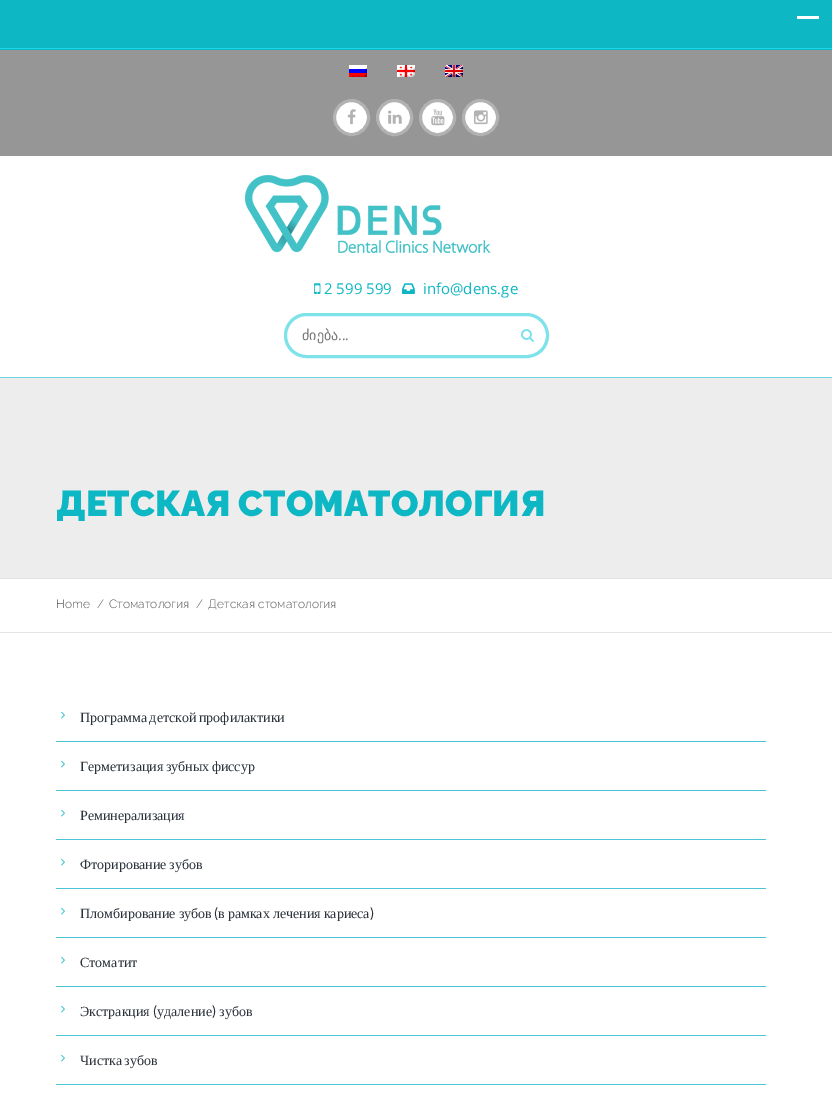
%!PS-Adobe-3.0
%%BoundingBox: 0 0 832 1095
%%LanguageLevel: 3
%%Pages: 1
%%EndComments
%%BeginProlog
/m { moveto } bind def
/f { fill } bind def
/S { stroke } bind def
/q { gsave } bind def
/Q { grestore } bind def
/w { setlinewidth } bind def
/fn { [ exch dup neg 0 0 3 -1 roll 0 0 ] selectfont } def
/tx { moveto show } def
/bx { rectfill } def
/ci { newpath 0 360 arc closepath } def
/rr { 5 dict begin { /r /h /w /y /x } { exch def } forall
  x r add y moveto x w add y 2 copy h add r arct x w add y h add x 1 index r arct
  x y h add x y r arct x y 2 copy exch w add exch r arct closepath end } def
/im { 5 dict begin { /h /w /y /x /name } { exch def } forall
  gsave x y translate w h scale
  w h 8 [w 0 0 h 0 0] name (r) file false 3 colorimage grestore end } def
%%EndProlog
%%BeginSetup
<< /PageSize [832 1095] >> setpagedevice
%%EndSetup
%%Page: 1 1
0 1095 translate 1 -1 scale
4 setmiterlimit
1 setgray
0 0 832 1095 bx
0.051 0.718 0.769 setrgbcolor
0 0 832 50 bx
1 setgray
797 16 22 3 bx
0.102 0.843 0.902 setrgbcolor
0 48 832 1 bx
0.588 setgray
0 50 832 106 bx
(image0.raw) 349 65 18 12 im
(image1.raw) 397 65 18 12 im
(image2.raw) 445 65 18 12 im
1 setgray
351.5 117.5 17 ci q f Q
0.698 setgray
3 w
S
(image3.raw) 347 109 9 16 im
1 setgray
394.5 117.5 17 ci q f Q
0.698 setgray
S
(image4.raw) 388 110 14 14 im
1 setgray
437.5 117.5 17 ci q f Q
0.698 setgray
S
(image5.raw) 431 109 14 17 im
1 setgray
480.5 117.5 17 ci q f Q
0.698 setgray
S
(image6.raw) 474 110 14 15 im
(image7.raw) 245 175 246 78 im
(image8.raw) 314 283 7 11 im
/OpenSans-Regular 15 fn
0.051 0.718 0.769 setrgbcolor
(2 599 599) 324 294 tx
(image9.raw) 402 283 13 11 im
(info@dens.ge) 423 294 tx
0.49 0.886 0.918 setrgbcolor
285.5 314.5 262 42 21 rr S
/DejaVuSans-Regular 14 fn
0.459 setgray
(ძიება) 302 340 tx
/OpenSans-Regular 14 fn
(...) 338 340 tx
(image10.raw) 521 329 13 13 im
0.431 0.831 0.863 setrgbcolor
0 377 832 1 bx
0.929 setgray
0 378 832 200 bx
/Raleway-Black 36 fn
0.051 0.718 0.769 setrgbcolor
(ДЕТСКАЯ СТОМАТОЛОГИЯ) 56 516 tx
0.89 setgray
0 578 832 1 bx
0 632 832 1 bx
/Raleway-Light 12 fn
0.357 setgray
(Home) 56 608 tx
(/) 97 608 tx
(Стоматология) 109 608 tx
(/) 196 608 tx
(Детская стоматология) 208 608 tx
0.294 0.765 0.835 setrgbcolor
56 741 710 1 bx
(image11.raw) 61 711 4 8 im
/LiberationSerif-Regular 14 fn
0.165 0.192 0.227 setrgbcolor
80 722 m -1 0 32 (Программа детской профилактики) widthshow
0.294 0.765 0.835 setrgbcolor
56 790 710 1 bx
(image11.raw) 61 760 4 8 im
0.165 0.192 0.227 setrgbcolor
80 771 m -1 0 32 (Герметизация зубных фиссур) widthshow
0.294 0.765 0.835 setrgbcolor
56 839 710 1 bx
(image11.raw) 61 809 4 8 im
0.165 0.192 0.227 setrgbcolor
(Реминерализация) 80 820 tx
0.294 0.765 0.835 setrgbcolor
56 888 710 1 bx
(image11.raw) 61 858 4 8 im
0.165 0.192 0.227 setrgbcolor
80 869 m -1 0 32 (Фторирование зубов) widthshow
0.294 0.765 0.835 setrgbcolor
56 937 710 1 bx
(image11.raw) 61 907 4 8 im
0.165 0.192 0.227 setrgbcolor
80 918 m -0.5 0 32 (Пломбирование зубов) widthshow
/Lato-Regular 14 fn
(\() 214 918 tx
/LiberationSerif-Regular 14 fn
218 918 m -0.5 0 32 (в рамках лечения кариеса) widthshow
/Lato-Regular 14 fn
(\)) 370 918 tx
0.294 0.765 0.835 setrgbcolor
56 986 710 1 bx
(image11.raw) 61 956 4 8 im
/LiberationSerif-Regular 14 fn
0.165 0.192 0.227 setrgbcolor
(Стоматит) 80 967 tx
0.294 0.765 0.835 setrgbcolor
56 1035 710 1 bx
(image11.raw) 61 1005 4 8 im
0.165 0.192 0.227 setrgbcolor
(Экстракция) 80 1016 tx
/Lato-Regular 14 fn
(\() 153 1016 tx
/LiberationSerif-Regular 14 fn
(удаление) 157 1016 tx
/Lato-Regular 14 fn
(\)) 212 1016 tx
/LiberationSerif-Regular 14 fn
(зубов) 219 1016 tx
0.294 0.765 0.835 setrgbcolor
56 1084 710 1 bx
(image11.raw) 61 1054 4 8 im
0.165 0.192 0.227 setrgbcolor
80 1065 m -1 0 32 (Чистка зубов) widthshow
showpage
%%EOF
